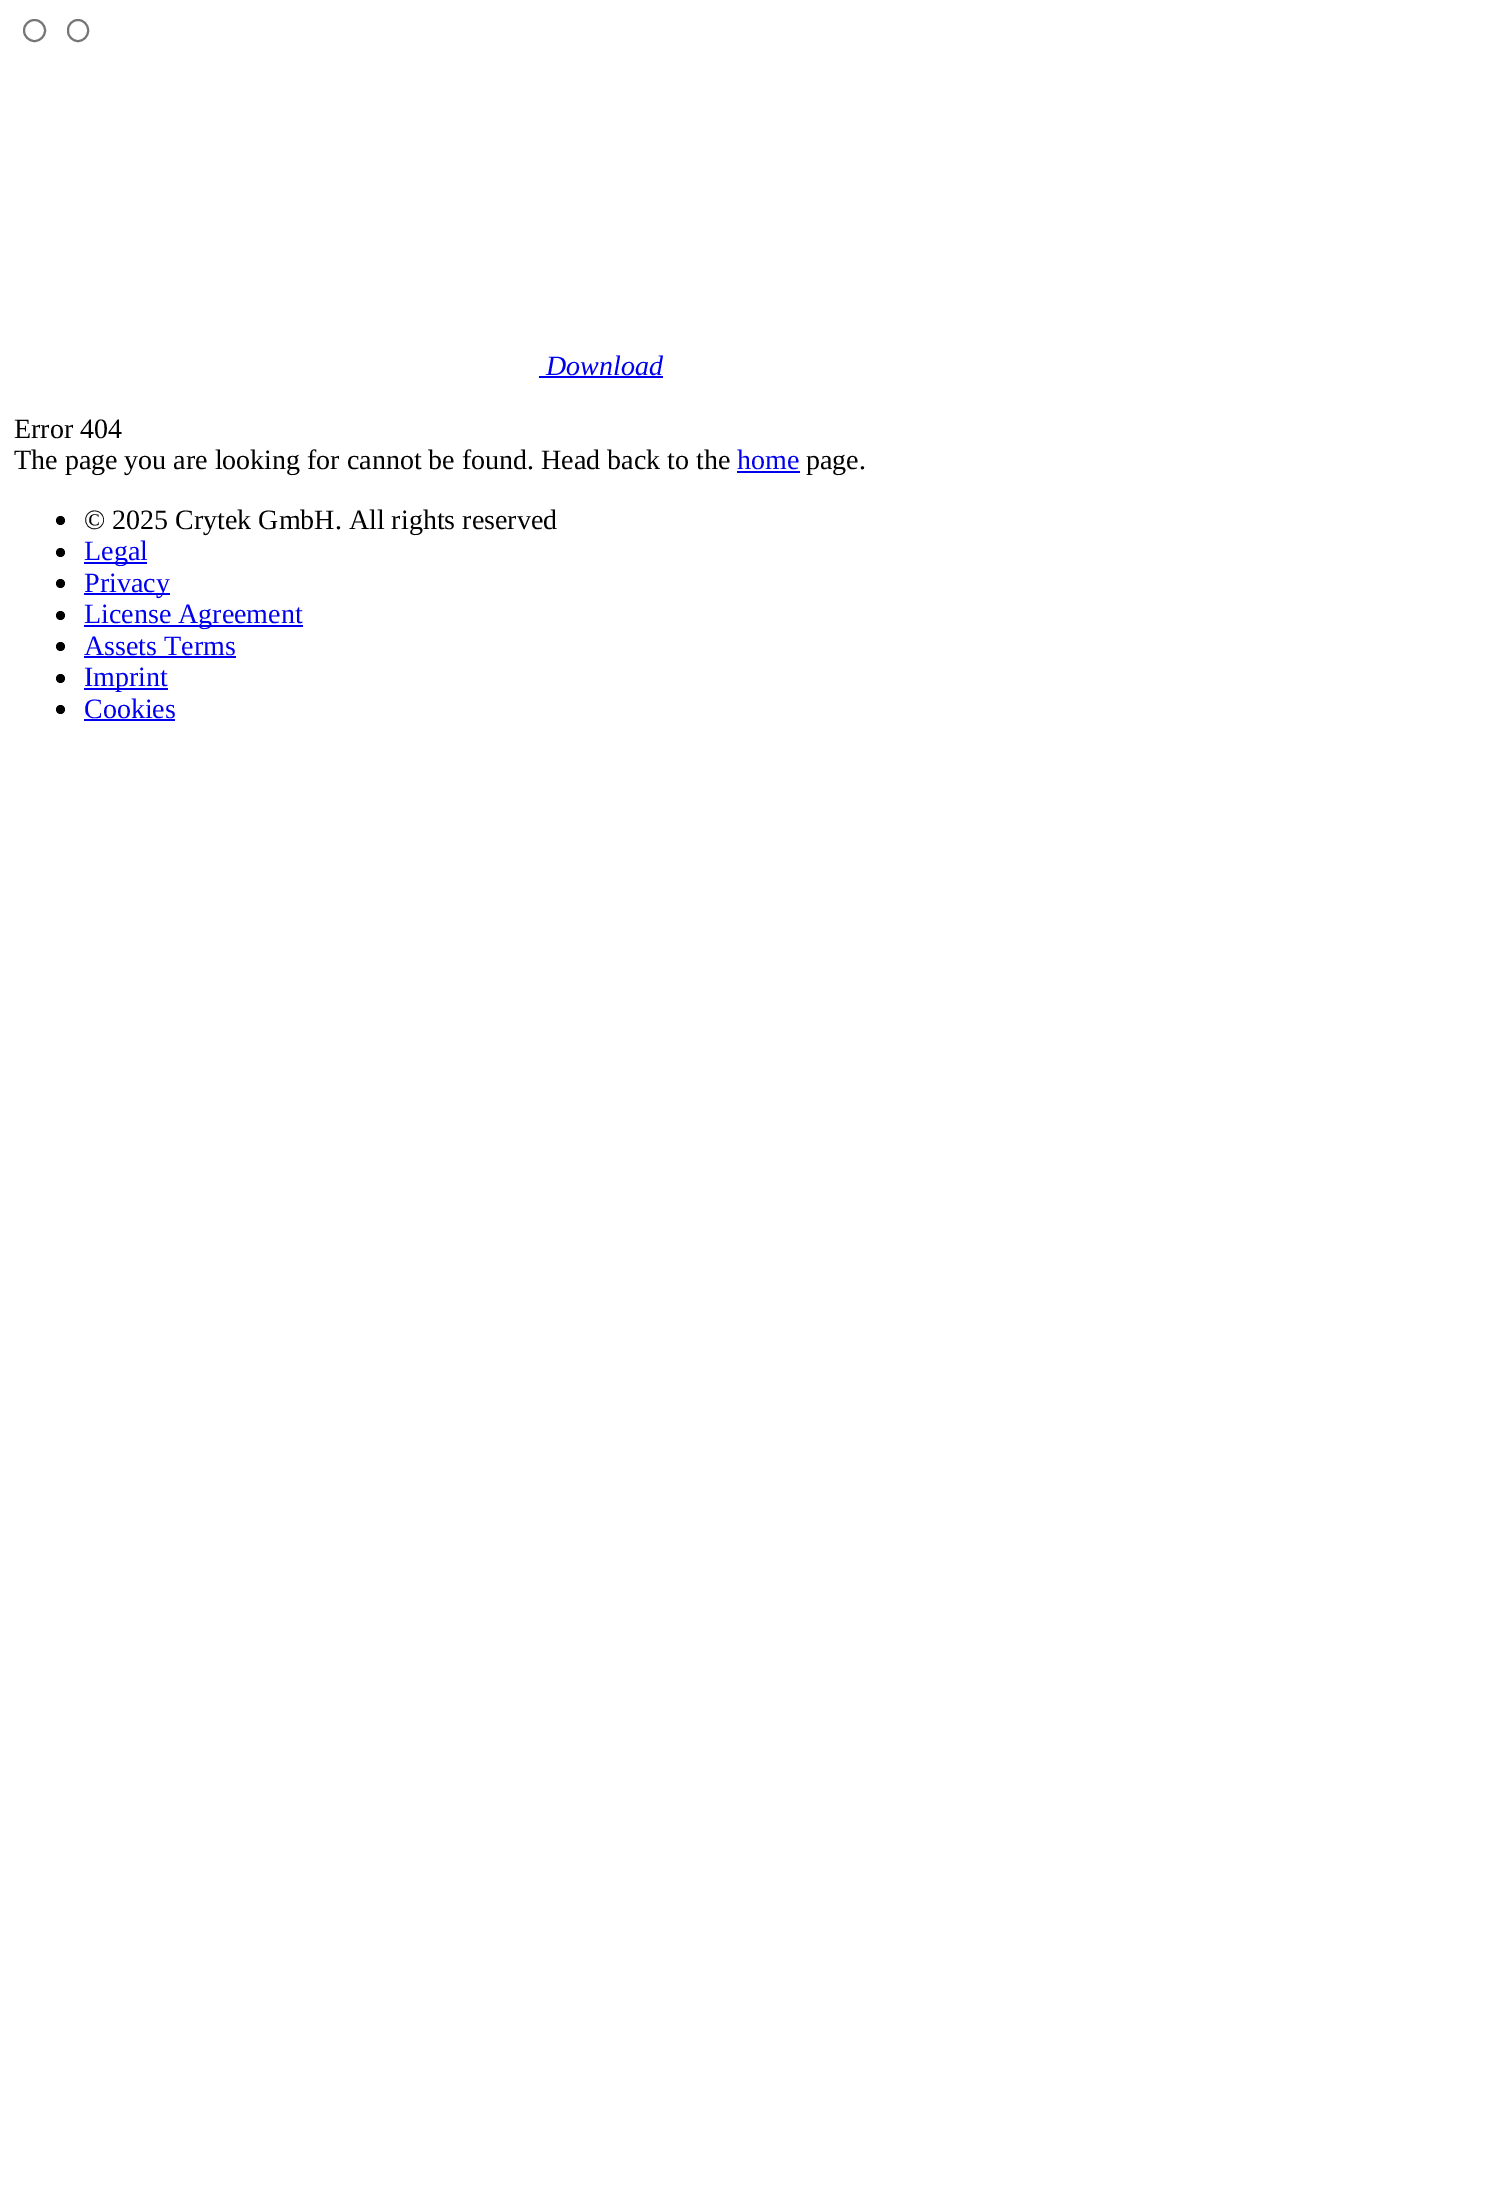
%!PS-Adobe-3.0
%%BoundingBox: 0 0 1506 2203
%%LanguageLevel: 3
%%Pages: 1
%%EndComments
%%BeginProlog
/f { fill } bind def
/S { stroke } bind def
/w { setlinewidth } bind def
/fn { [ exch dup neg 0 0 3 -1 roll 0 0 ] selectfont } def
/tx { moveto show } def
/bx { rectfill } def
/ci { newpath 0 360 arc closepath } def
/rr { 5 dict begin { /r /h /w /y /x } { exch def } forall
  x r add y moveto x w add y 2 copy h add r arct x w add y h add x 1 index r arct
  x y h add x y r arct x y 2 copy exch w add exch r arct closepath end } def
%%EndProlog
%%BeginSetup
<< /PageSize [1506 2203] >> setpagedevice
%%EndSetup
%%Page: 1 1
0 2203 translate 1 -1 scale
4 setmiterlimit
1 setgray
0 0 1506 2203 bx
0.463 setgray
2 w
34.5 30.5 10.5 ci S
68 20 20 21 10 rr S
/LiberationSerif-Italic 28 fn
0 0 0.933 setrgbcolor
(Download) 546 375 tx
539 376 124 2 bx
/LiberationSerif-Regular 28 fn
0 setgray
(Error 404) 14 438 tx
(The page you are looking for cannot be found. Head back to the) 14 469 tx
0 0 0.933 setrgbcolor
(home) 737 469 tx
737 471 63 2 bx
0 setgray
(page.) 806 469 tx
60.5 520.5 4.5 ci f
(© 2025 Crytek GmbH. All rights reserved) 84 529 tx
60.5 552.5 4.5 ci f
0 0 0.933 setrgbcolor
84 562 63 2 bx
(Legal) 84 560 tx
0 setgray
60.5 583.5 4.5 ci f
0 0 0.933 setrgbcolor
84 593 86 2 bx
(Privacy) 84 592 tx
0 setgray
60.5 615.5 4.5 ci f
0 0 0.933 setrgbcolor
84 625 219 2 bx
(License Agreement) 84 623 tx
0 setgray
60.5 646.5 4.5 ci f
0 0 0.933 setrgbcolor
(Assets Terms) 84 655 tx
84 656 152 2 bx
0 setgray
60.5 678.5 4.5 ci f
0 0 0.933 setrgbcolor
84 688 84 2 bx
(Imprint) 84 686 tx
0 setgray
60.5 709.5 4.5 ci f
0 0 0.933 setrgbcolor
(Cookies) 84 718 tx
84 719 91 2 bx
showpage
%%EOF
